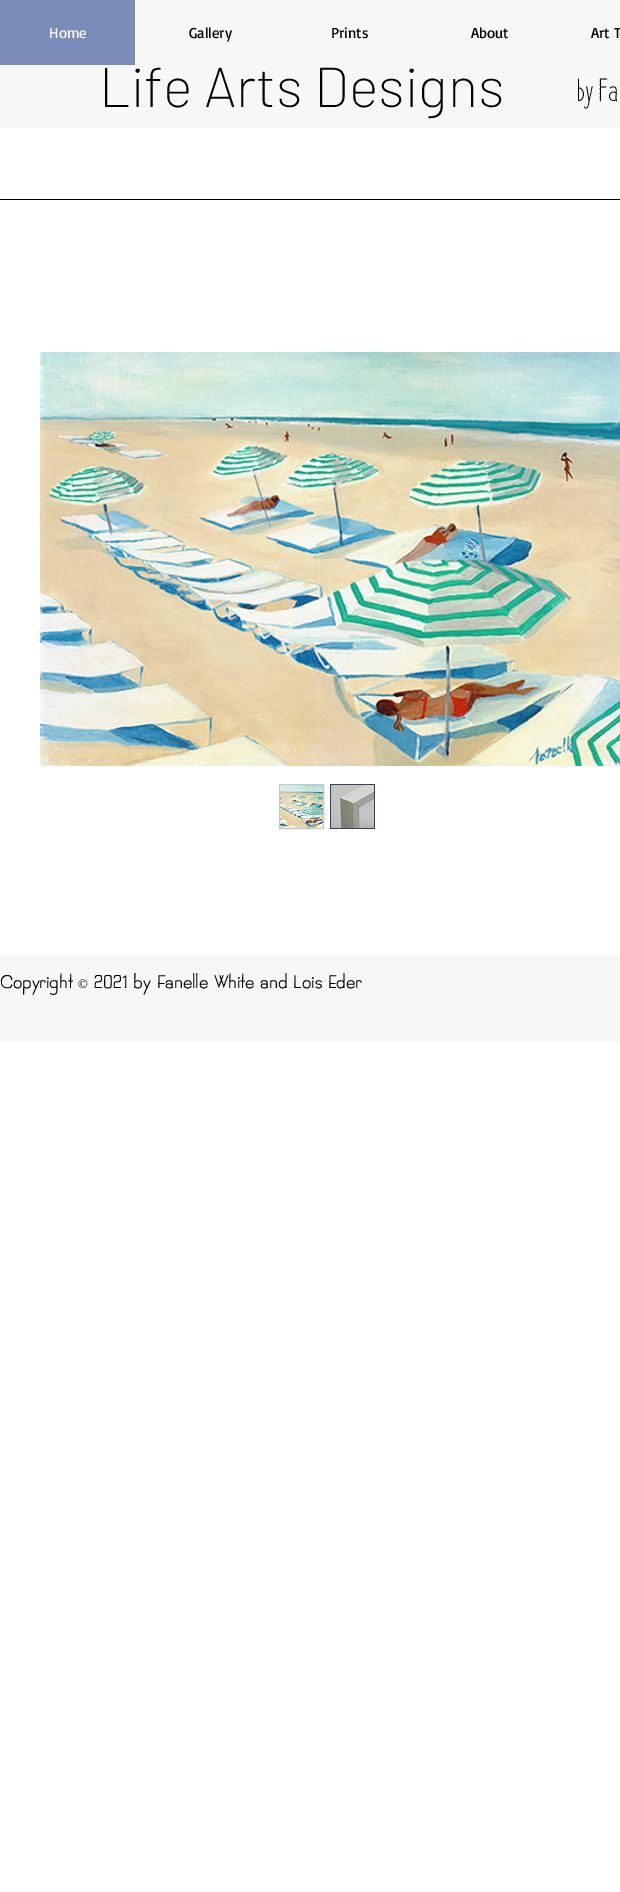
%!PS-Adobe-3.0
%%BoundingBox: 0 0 620 1892
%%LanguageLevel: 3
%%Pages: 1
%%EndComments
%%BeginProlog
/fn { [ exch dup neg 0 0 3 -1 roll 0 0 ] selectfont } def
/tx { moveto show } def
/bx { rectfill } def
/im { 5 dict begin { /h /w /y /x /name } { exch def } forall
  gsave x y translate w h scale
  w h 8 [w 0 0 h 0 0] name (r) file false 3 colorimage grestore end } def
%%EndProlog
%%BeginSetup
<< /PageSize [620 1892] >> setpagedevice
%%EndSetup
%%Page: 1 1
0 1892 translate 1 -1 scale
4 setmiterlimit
1 setgray
0 0 620 1892 bx
0.969 setgray
0 0 620 128 bx
0.482 0.545 0.729 setrgbcolor
0 0 135 65 bx
/Basic-Regular 15 fn
1 setgray
(Home) 49 38 tx
0 setgray
(Gallery) 189 38 tx
(Prints) 331 38 tx
(About) 471 38 tx
(Art T) 591 38 tx
/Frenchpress-Regular 32 fn
(by Fa) 576 101 tx
/Barlow-ExtraLight 56 fn
(Life Arts Designs) 99 107 tx
0 199 620 1 bx
(image0.raw) 40 352 580 414 im
0.765 0.776 0.839 setrgbcolor
279.5 784.5 44 44 rectstroke
(image1.raw) 280 785 43 43 im
0.227 0.251 0.353 setrgbcolor
330 784 45 45 bx
(image2.raw) 331 785 43 43 im
0.969 setgray
0 955 620 87 bx
/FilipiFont-SemiBold 13 fn
0 setgray
(Copyright) 0 988 tx
/LiberationSerif-Regular 13 fn
(©) 78 988 tx
/FilipiFont-SemiBold 13 fn
(2021 by Fanelle White and Lois Eder) 94 988 tx
showpage
%%EOF
